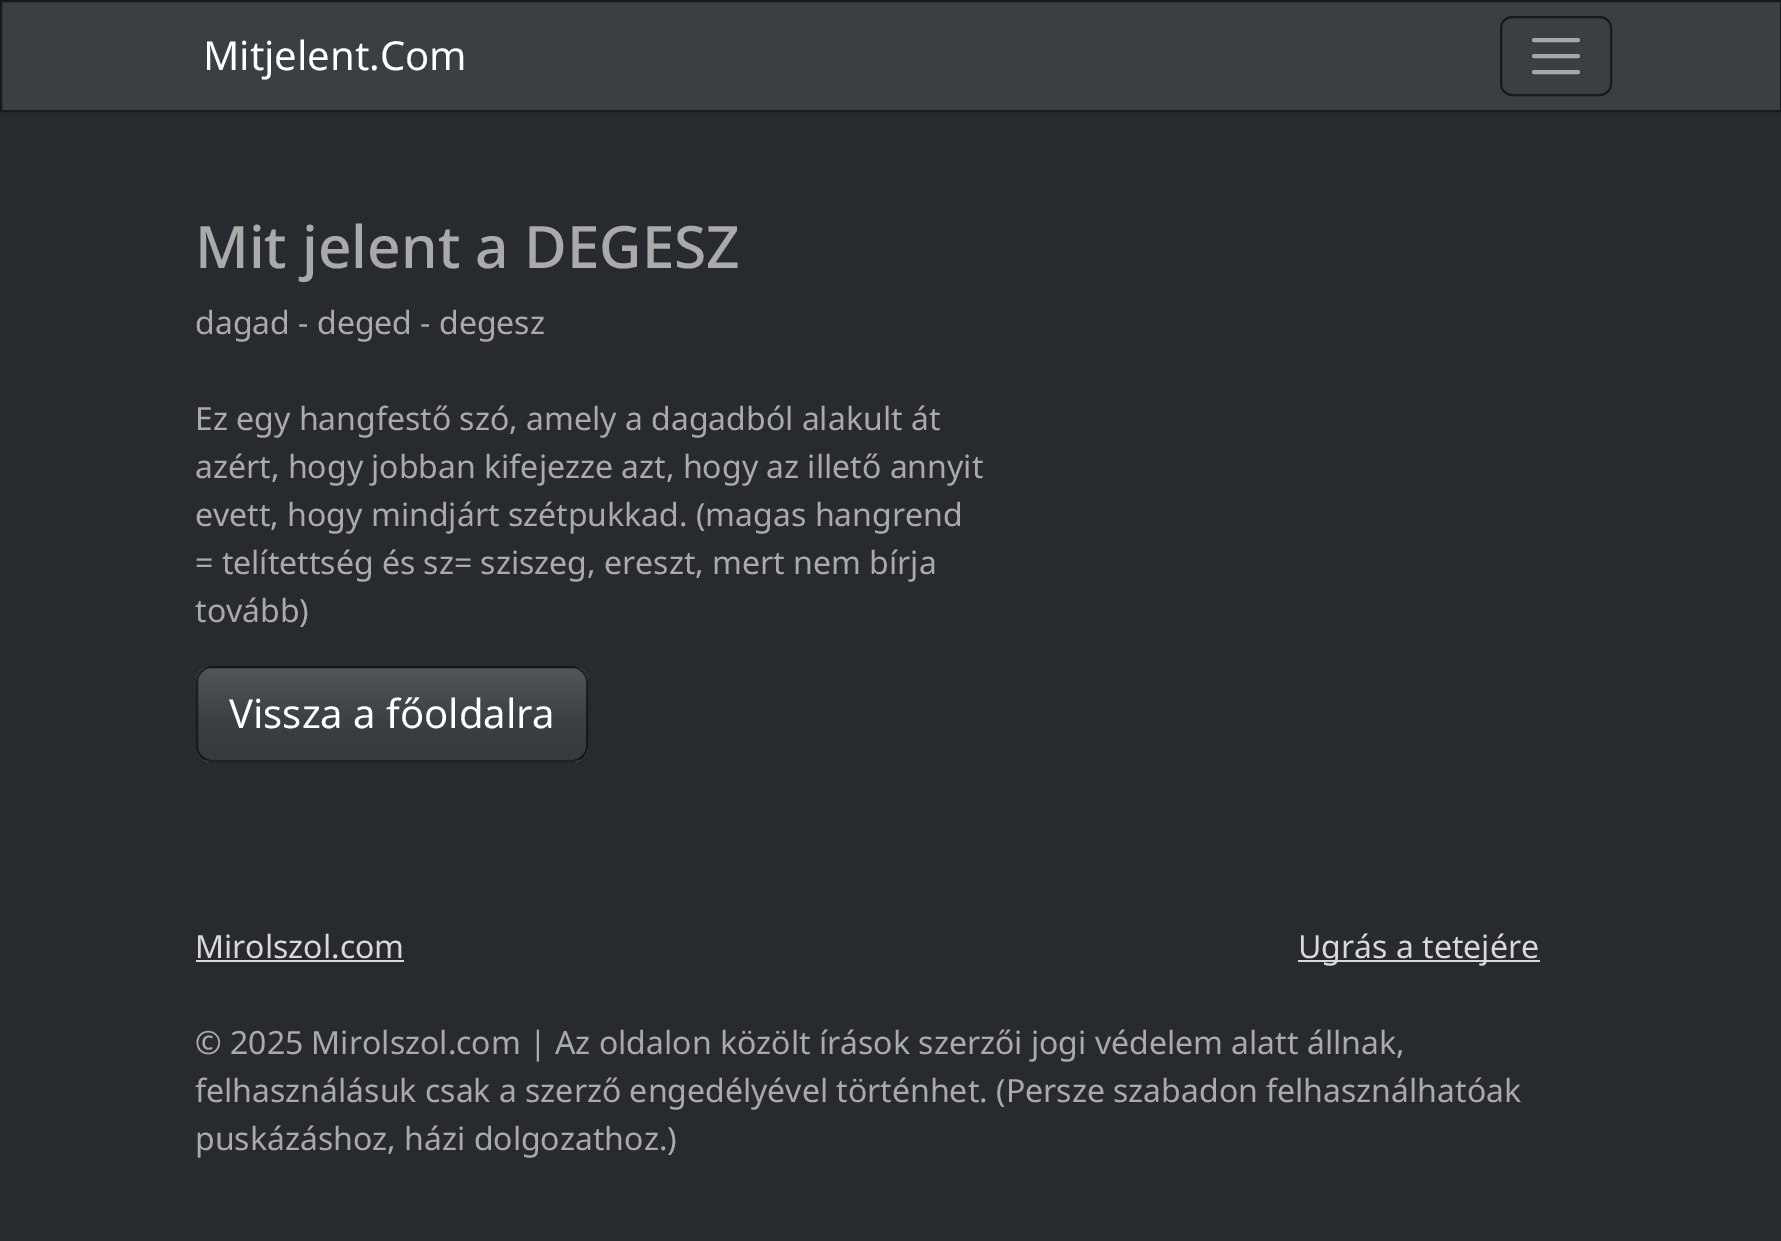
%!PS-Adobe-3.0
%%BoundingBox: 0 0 1781 1241
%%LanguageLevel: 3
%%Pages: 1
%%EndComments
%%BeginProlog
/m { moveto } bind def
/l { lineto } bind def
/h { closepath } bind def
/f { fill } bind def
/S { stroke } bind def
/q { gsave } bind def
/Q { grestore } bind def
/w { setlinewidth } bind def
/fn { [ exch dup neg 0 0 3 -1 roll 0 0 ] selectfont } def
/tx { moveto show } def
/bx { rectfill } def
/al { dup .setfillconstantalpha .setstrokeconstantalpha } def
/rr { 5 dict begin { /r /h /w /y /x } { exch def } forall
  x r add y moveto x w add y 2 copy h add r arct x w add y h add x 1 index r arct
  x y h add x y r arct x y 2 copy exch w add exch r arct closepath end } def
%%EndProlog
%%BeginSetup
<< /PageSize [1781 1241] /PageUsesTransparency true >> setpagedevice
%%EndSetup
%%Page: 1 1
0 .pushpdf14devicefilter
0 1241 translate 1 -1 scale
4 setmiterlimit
0.153 0.169 0.188 setrgbcolor
0 0 1781 1241 bx
0.227 0.247 0.267 setrgbcolor
1 1 m 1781 1 l 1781 111 l 1 111 l h q f Q
0.09 0.098 0.106 setrgbcolor
2 w
S
/NotoSans-Regular 40 fn
1 setgray
(Mitjelent.Com) 203 70 tx
0.09 0.098 0.106 setrgbcolor
1501 17 110 78 11 rr S
0.651 0.663 0.671 setrgbcolor
4 w
1 setlinecap
1534 40 m 1578 40 l 1534 56 m 1578 56 l 1534 72 m 1578 72 l S
/NotoSans-Medium 58.5 fn
0.667 setgray
(Mit jelent a DEGESZ) 195 268 tx
/NotoSans-Regular 32 fn
(dagad - deged - degesz) 195 334 tx
(Ez egy hangfestő szó, amely a dagadból alakult át) 195 430 tx
(azért, hogy jobban kifejezze azt, hogy az illető annyit) 195 478 tx
(evett, hogy mindjárt szétpukkad. \(magas hangrend) 195 526 tx
(= telítettség és sz= sziszeg, ereszt, mert nem bírja) 195 574 tx
(tovább\)) 195 622 tx
q
196 666 392 96 16 rr clip newpath
q 196 666 m 588 666 l 588 668 l 196 668 l h clip newpath
<< /ShadingType 2 /ColorSpace /DeviceRGB /Coords [392 576 392 668] /Extend [true true] /Function << /FunctionType 3 /Domain [0 1] /Functions [<< /FunctionType 2 /Domain [0 1] /C0 [0.322 0.337 0.353] /C1 [0.227 0.247 0.267] /N 1 >> << /FunctionType 2 /Domain [0 1] /C0 [0.227 0.247 0.267] /C1 [0.208 0.227 0.247] /N 1 >>] /Bounds [0.6] /Encode [0 1 0 1] >> >> shfill Q
q 196 668 m 588 668 l 588 760 l 196 760 l h clip newpath
<< /ShadingType 2 /ColorSpace /DeviceRGB /Coords [392 668 392 760] /Extend [true true] /Function << /FunctionType 3 /Domain [0 1] /Functions [<< /FunctionType 2 /Domain [0 1] /C0 [0.322 0.337 0.353] /C1 [0.227 0.247 0.267] /N 1 >> << /FunctionType 2 /Domain [0 1] /C0 [0.227 0.247 0.267] /C1 [0.208 0.227 0.247] /N 1 >>] /Bounds [0.6] /Encode [0 1 0 1] >> >> shfill Q
q 196 760 m 588 760 l 588 762 l 196 762 l h clip newpath
<< /ShadingType 2 /ColorSpace /DeviceRGB /Coords [392 760 392 852] /Extend [true true] /Function << /FunctionType 3 /Domain [0 1] /Functions [<< /FunctionType 2 /Domain [0 1] /C0 [0.322 0.337 0.353] /C1 [0.227 0.247 0.267] /N 1 >> << /FunctionType 2 /Domain [0 1] /C0 [0.227 0.247 0.267] /C1 [0.208 0.227 0.247] /N 1 >>] /Bounds [0.6] /Encode [0 1 0 1] >> >> shfill Q
Q
0.6 al
0 setgray
2 w
0 setlinecap
197 667 390 94 15 rr S
/NotoSans-Regular 40 fn
1 al
1 setgray
(Vissza a főoldalra) 229 728 tx
/NotoSans-Regular 32 fn
0.851 setgray
(Mirolszol.com) 195 958 tx
196 960 208 2 bx
1298 960 242 2 bx
(Ugrás a tetejére) 1298 958 tx
0.667 setgray
(© 2025 Mirolszol.com | Az oldalon közölt írások szerzői jogi védelem alatt állnak,) 195 1054 tx
(felhasználásuk csak a szerző engedélyével történhet. \(Persze szabadon felhasználhatóak) 195 1102 tx
(puskázáshoz, házi dolgozathoz.\)) 195 1150 tx
.poppdf14devicefilter showpage
%%EOF
